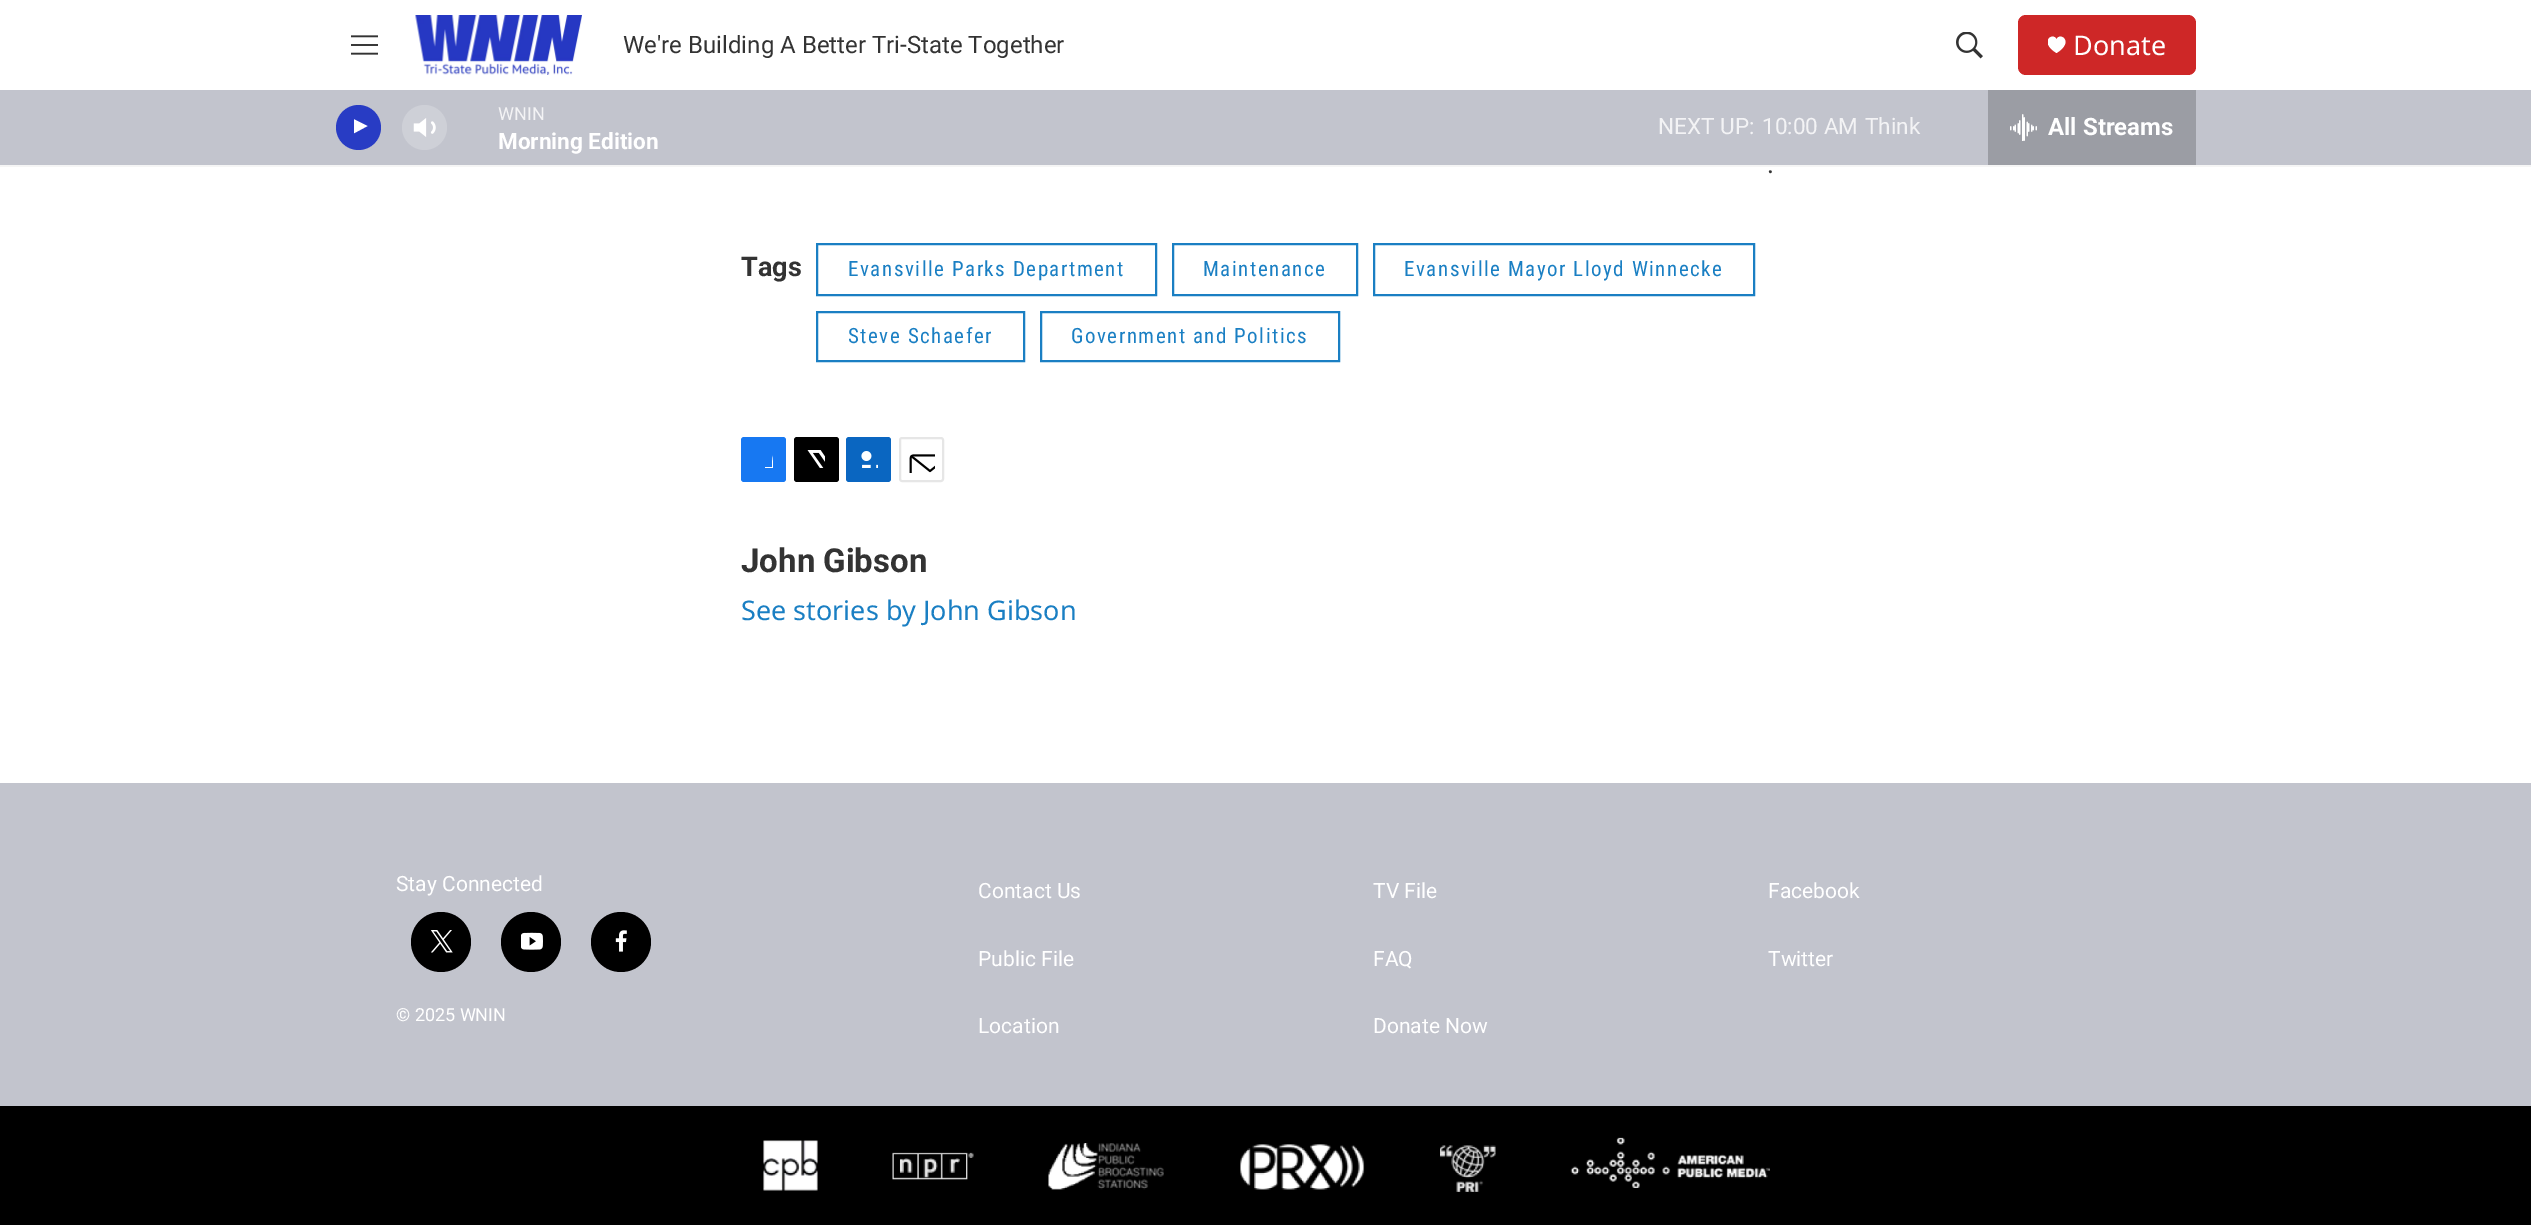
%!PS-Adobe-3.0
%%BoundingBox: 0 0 2531 1225
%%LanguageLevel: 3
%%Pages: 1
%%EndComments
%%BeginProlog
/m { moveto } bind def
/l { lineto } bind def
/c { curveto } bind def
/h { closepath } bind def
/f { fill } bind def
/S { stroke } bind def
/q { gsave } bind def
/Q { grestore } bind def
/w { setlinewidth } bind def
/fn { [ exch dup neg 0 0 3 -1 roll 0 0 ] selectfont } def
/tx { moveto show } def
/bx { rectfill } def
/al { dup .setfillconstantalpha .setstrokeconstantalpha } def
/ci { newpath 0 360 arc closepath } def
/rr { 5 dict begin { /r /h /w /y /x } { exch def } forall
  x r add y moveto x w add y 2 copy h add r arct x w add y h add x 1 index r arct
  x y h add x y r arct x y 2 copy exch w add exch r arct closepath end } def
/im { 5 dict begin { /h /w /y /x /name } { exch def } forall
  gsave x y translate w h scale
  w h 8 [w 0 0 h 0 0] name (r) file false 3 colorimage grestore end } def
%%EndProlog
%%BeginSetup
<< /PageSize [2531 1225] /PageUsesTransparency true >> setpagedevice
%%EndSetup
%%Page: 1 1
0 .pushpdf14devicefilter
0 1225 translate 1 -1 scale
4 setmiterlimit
1 setgray
0 0 2531 1225 bx
0.961 setgray
0 165 2531 2 bx
(image0.raw) 351 35 27 20 im
(image1.raw) 415 15 167 60 im
/Roboto-Regular 24 fn
0.2 setgray
(We're Building A Better Tri-State Together) 623 53 tx
(image2.raw) 1956 32 27 27 im
0.808 0.153 0.153 setrgbcolor
2018 15 178 60 8 rr f
q
2048 36 18 18 rectclip
1 setgray
2056.5 39.5 m 2053.5 31.5 2038 41.5 2056.5 53 c 2075 41.5 2059.5 31.5 2056.5 39.5 c h f
Q
/NotoSans-Regular 27 fn
1 setgray
(Donate) 2073 55 tx
0.761 0.769 0.804 setrgbcolor
0 90 2531 75 bx
0.157 0.235 0.769 setrgbcolor
358.5 127.5 22.5 ci f
q
354 117 17 23 rectclip
1 setgray
353.5 119 m 367.5 126 l 353.5 133.5 l h f
Q
(image3.raw) 413 118 23 19 im
0.2 al
1 setgray
424.5 127.5 22.5 ci f
/Roboto-Regular 18 fn
1 al
0.953 0.953 0.961 setrgbcolor
(WNIN) 498 120 tx
/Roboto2-Bold 22.5 fn
1 setgray
(Morning Edition) 498 149 tx
/Roboto-Regular 22.5 fn
0.953 0.953 0.961 setrgbcolor
(NEXT UP:) 1658 134 tx
(10:00 AM) 1762 134 tx
(Think) 1865 134 tx
0.608 0.616 0.643 setrgbcolor
1988 90 208 75 bx
(image4.raw) 2010 114 27 27 im
/Roboto2-Bold 24 fn
1 setgray
(All Streams) 2048 135 tx
/Roboto-Regular 27 fn
0.2 setgray
(.) 1767 173 tx
/Roboto-Bold 27 fn
(Tags) 741 276 tx
0.102 0.498 0.765 setrgbcolor
2 w
817 244 339 51 rectstroke
/RobotoCondensed-Regular 21 fn
848 276 m 1.5 0 (Evansville Parks Department) ashow
1173 244 184 51 rectstroke
1203 276 m 1.5 0 (Maintenance) ashow
1374 244 380 51 rectstroke
1404 276 m 1.5 0 (Evansville Mayor Lloyd Winnecke) ashow
817 312 207 49 rectstroke
848 343 m 1.5 0 (Steve Schaefer) ashow
1041 312 298 49 rectstroke
1071 343 m 1.5 0 (Government and Politics) ashow
0.09 0.471 0.949 setrgbcolor
741 437 45 45 3 rr f
q
755 450 18 18 rectclip
1 setgray
779 482 m 772 482 l 772 474 l 765 474 l 765 467 l 772 467 l 772 454.5 773 449 786 451 c 786 458 l 777.5 458 779 459.5 779 467 c 786 467 l 785 474 l 779 474 l h f
Q
0 setgray
794 437 45 45 3 rr f
(image5.raw) 807 450 18 18 im
0.039 0.4 0.757 setrgbcolor
846 437 45 45 3 rr f
(image6.raw) 861 451 17 17 im
0.902 setgray
900 438 43 43 2 rr S
(image7.raw) 909 454 26 19 im
/Roboto-Bold 33 fn
0.2 setgray
(John Gibson) 741 572 tx
/NotoSans-Regular 27 fn
0.102 0.498 0.765 setrgbcolor
(See stories by John Gibson) 741 620 tx
0.761 0.769 0.804 setrgbcolor
0 783 2531 323 bx
/Roboto-Regular 21 fn
1 setgray
(Stay Connected) 396 891 tx
0 setgray
441 942 30 ci f
(image8.raw) 431 930 22 23 im
531 942 30 ci f
(image9.raw) 521 932 22 18 im
621 942 30 ci f
(image10.raw) 615 930 12 22 im
/Roboto-Regular 18 fn
1 setgray
(© 2025 WNIN) 396 1021 tx
/Roboto-Regular 21 fn
(Contact Us) 978 898 tx
(TV File) 1373 898 tx
(Facebook) 1768 898 tx
(Public File) 978 966 tx
(FAQ) 1373 966 tx
(Twitter) 1768 966 tx
(Location) 978 1033 tx
(Donate Now) 1373 1033 tx
0 setgray
0 1106 2531 119 bx
(image11.raw) 763 1140 55 51 im
(image12.raw) 892 1152 82 28 im
(image13.raw) 1048 1143 116 47 im
(image14.raw) 1240 1144 125 46 im
(image15.raw) 1440 1145 56 47 im
(image16.raw) 1570 1137 200 51 im
.poppdf14devicefilter showpage
%%EOF
